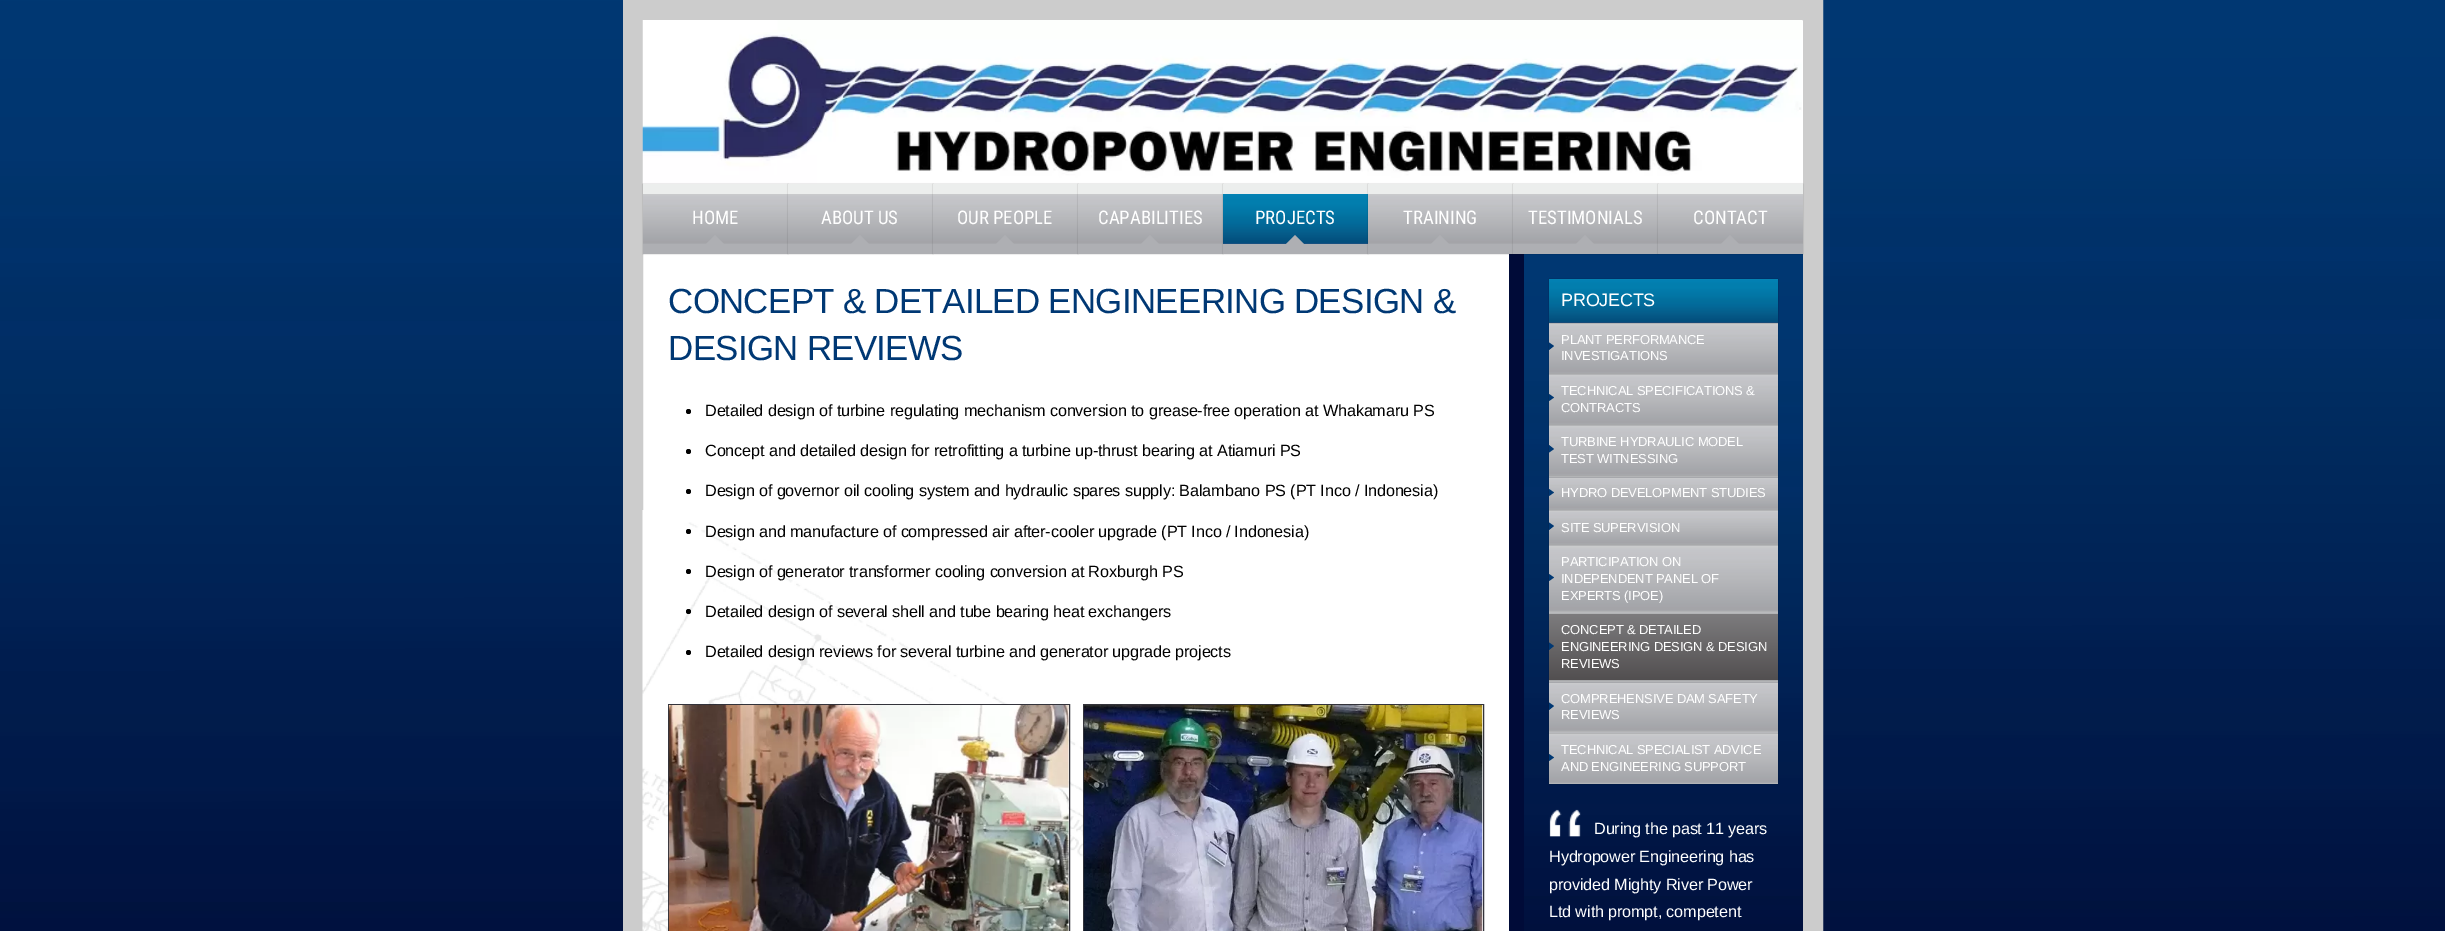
%!PS-Adobe-3.0
%%BoundingBox: 0 0 2445 931
%%LanguageLevel: 3
%%Pages: 1
%%EndComments
%%BeginProlog
/m { moveto } bind def
/l { lineto } bind def
/h { closepath } bind def
/f { fill } bind def
/S { stroke } bind def
/q { gsave } bind def
/Q { grestore } bind def
/w { setlinewidth } bind def
/fn { [ exch dup neg 0 0 3 -1 roll 0 0 ] selectfont } def
/tx { moveto show } def
/bx { rectfill } def
/al { dup .setfillconstantalpha .setstrokeconstantalpha } def
/ci { newpath 0 360 arc closepath } def
/rr { 5 dict begin { /r /h /w /y /x } { exch def } forall
  x r add y moveto x w add y 2 copy h add r arct x w add y h add x 1 index r arct
  x y h add x y r arct x y 2 copy exch w add exch r arct closepath end } def
/sh { 12 dict begin { /a /b /q /h /w /y /x } { exch def } forall gsave /was 0 def
  9 -2 -9 { dup b mul 4 div /e exch def 1 sub .425 mul 2.718 exch exp 1 add a .99 .min exch div /now exch def
    1 1 now sub 1 was sub div sub al /was now def
    w h .min e 2 mul add 0 gt { x e sub y e sub w e 2 mul add h e 2 mul add
      q e add b .6 mul add w h .min 2 div e add .min 0 .max rr fill } if } for grestore end } def
/im { 5 dict begin { /h /w /y /x /name } { exch def } forall
  gsave x y translate w h scale
  w h 8 [w 0 0 h 0 0] name (r) file false 3 colorimage grestore end } def
%%EndProlog
%%BeginSetup
<< /PageSize [2445 931] /PageUsesTransparency true >> setpagedevice
%%EndSetup
%%Page: 1 1
0 .pushpdf14devicefilter
0 931 translate 1 -1 scale
4 setmiterlimit
1 setgray
0 0 2445 931 bx
q 0 0 m 2445 0 l 2445 931 l 0 931 l h clip newpath
<< /ShadingType 2 /ColorSpace /DeviceRGB /Coords [1222 0 1223 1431] /Extend [true true] /Function << /FunctionType 3 /Domain [0 1] /Functions [<< /FunctionType 2 /Domain [0 1] /C0 [0 0.22 0.451] /C1 [0.004 0.208 0.435] /N 1 >> << /FunctionType 2 /Domain [0 1] /C0 [0.004 0.208 0.435] /C1 [0 0.2 0.416] /N 1 >> << /FunctionType 2 /Domain [0 1] /C0 [0 0.2 0.416] /C1 [0 0.2 0.424] /N 1 >> << /FunctionType 2 /Domain [0 1] /C0 [0 0.2 0.424] /C1 [0 0.192 0.412] /N 1 >> << /FunctionType 2 /Domain [0 1] /C0 [0 0.192 0.412] /C1 [0 0.192 0.42] /N 1 >> << /FunctionType 2 /Domain [0 1] /C0 [0 0.192 0.42] /C1 [0 0.184 0.396] /N 1 >> << /FunctionType 2 /Domain [0 1] /C0 [0 0.184 0.396] /C1 [0.004 0.18 0.404] /N 1 >> << /FunctionType 2 /Domain [0 1] /C0 [0.004 0.18 0.404] /C1 [0 0.176 0.38] /N 1 >> << /FunctionType 2 /Domain [0 1] /C0 [0 0.176 0.38] /C1 [0.004 0.129 0.329] /N 1 >> << /FunctionType 2 /Domain [0 1] /C0 [0.004 0.129 0.329] /C1 [0 0.114 0.31] /N 1 >> << /FunctionType 2 /Domain [0 1] /C0 [0 0.114 0.31] /C1 [0.004 0.11 0.294] /N 1 >> << /FunctionType 2 /Domain [0 1] /C0 [0.004 0.11 0.294] /C1 [0 0.098 0.29] /N 1 >> << /FunctionType 2 /Domain [0 1] /C0 [0 0.098 0.29] /C1 [0.004 0.098 0.286] /N 1 >> << /FunctionType 2 /Domain [0 1] /C0 [0.004 0.098 0.286] /C1 [0 0.086 0.271] /N 1 >> << /FunctionType 2 /Domain [0 1] /C0 [0 0.086 0.271] /C1 [0.004 0.075 0.255] /N 1 >> << /FunctionType 2 /Domain [0 1] /C0 [0 0.075 0.243] /C1 [0 0.071 0.251] /N 1 >> << /FunctionType 2 /Domain [0 1] /C0 [0 0.071 0.251] /C1 [0 0.047 0.212] /N 1 >> << /FunctionType 2 /Domain [0 1] /C0 [0 0.047 0.212] /C1 [0 0.043 0.208] /N 1 >> << /FunctionType 2 /Domain [0 1] /C0 [0 0.043 0.208] /C1 [0 0.027 0.192] /N 1 >> << /FunctionType 2 /Domain [0 1] /C0 [0 0.027 0.192] /C1 [0 0 0.149] /N 1 >>] /Bounds [0.11 0.14 0.15 0.16 0.18 0.21 0.23 0.27 0.43 0.46 0.51 0.52 0.55 0.57 0.63 0.64 0.73 0.77 0.8] /Encode [0 1 0 1 0 1 0 1 0 1 0 1 0 1 0 1 0 1 0 1 0 1 0 1 0 1 0 1 0 1 0 1 0 1 0 1 0 1 0 1] >> >> shfill Q
633 10 m 1813 10 l 1813 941 l 633 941 l h q f Q
0.8 setgray
20 w
S
(image0.raw) 642 20 1160 164 im
0 setgray
643 184 145 70 0 0.5 0.25 sh
q 643 194 m 788 194 l 788 244 l 643 244 l h clip newpath
<< /ShadingType 2 /ColorSpace /DeviceRGB /Coords [715 194 715 244] /Extend [true true] /Function << /FunctionType 3 /Domain [0 1] /Functions [<< /FunctionType 2 /Domain [0 1] /C0 [0.796 0.8 0.804] /C1 [0.773 0.776 0.792] /N 1 >> << /FunctionType 2 /Domain [0 1] /C0 [0.773 0.776 0.792] /C1 [0.761 0.765 0.78] /N 1 >> << /FunctionType 2 /Domain [0 1] /C0 [0.761 0.765 0.78] /C1 [0.749 0.753 0.761] /N 1 >> << /FunctionType 2 /Domain [0 1] /C0 [0.749 0.753 0.761] /C1 [0.749 0.753 0.769] /N 1 >> << /FunctionType 2 /Domain [0 1] /C0 [0.749 0.753 0.769] /C1 [0.725 0.729 0.741] /N 1 >> << /FunctionType 2 /Domain [0 1] /C0 [0.725 0.729 0.741] /C1 [0.647 0.651 0.667] /N 1 >> << /FunctionType 2 /Domain [0 1] /C0 [0.647 0.651 0.667] /C1 [0.643 0.643 0.659] /N 1 >> << /FunctionType 2 /Domain [0 1] /C0 [0.643 0.643 0.659] /C1 [0.655 0.659 0.675] /N 1 >>] /Bounds [0.05 0.2 0.25 0.27 0.45 0.91 0.98] /Encode [0 1 0 1 0 1 0 1 0 1 0 1 0 1 0 1] >> >> shfill Q
0.925 0.933 0.929 setrgbcolor
643 184 145 10 bx
0.682 0.686 0.702 setrgbcolor
643 244 145 10 bx
/RobotoCondensed-Regular 18.75 fn
1 setgray
(HOME) 692 224 tx
0.682 0.686 0.702 setrgbcolor
724 244 m 706 244 l 715 235 l h f
0 setgray
788 184 145 70 0 0.5 0.25 sh
q 788 194 m 933 194 l 933 244 l 788 244 l h clip newpath
<< /ShadingType 2 /ColorSpace /DeviceRGB /Coords [860 194 860 244] /Extend [true true] /Function << /FunctionType 3 /Domain [0 1] /Functions [<< /FunctionType 2 /Domain [0 1] /C0 [0.796 0.8 0.804] /C1 [0.773 0.776 0.792] /N 1 >> << /FunctionType 2 /Domain [0 1] /C0 [0.773 0.776 0.792] /C1 [0.761 0.765 0.78] /N 1 >> << /FunctionType 2 /Domain [0 1] /C0 [0.761 0.765 0.78] /C1 [0.749 0.753 0.761] /N 1 >> << /FunctionType 2 /Domain [0 1] /C0 [0.749 0.753 0.761] /C1 [0.749 0.753 0.769] /N 1 >> << /FunctionType 2 /Domain [0 1] /C0 [0.749 0.753 0.769] /C1 [0.725 0.729 0.741] /N 1 >> << /FunctionType 2 /Domain [0 1] /C0 [0.725 0.729 0.741] /C1 [0.647 0.651 0.667] /N 1 >> << /FunctionType 2 /Domain [0 1] /C0 [0.647 0.651 0.667] /C1 [0.643 0.643 0.659] /N 1 >> << /FunctionType 2 /Domain [0 1] /C0 [0.643 0.643 0.659] /C1 [0.655 0.659 0.675] /N 1 >>] /Bounds [0.05 0.2 0.25 0.27 0.45 0.91 0.98] /Encode [0 1 0 1 0 1 0 1 0 1 0 1 0 1 0 1] >> >> shfill Q
0.925 0.933 0.929 setrgbcolor
788 184 145 10 bx
0.682 0.686 0.702 setrgbcolor
788 244 145 10 bx
1 setgray
(ABOUT US) 821 224 tx
0.682 0.686 0.702 setrgbcolor
869 244 m 851 244 l 860 235 l h f
0 setgray
933 184 145 70 0 0.5 0.25 sh
q 933 194 m 1078 194 l 1078 244 l 933 244 l h clip newpath
<< /ShadingType 2 /ColorSpace /DeviceRGB /Coords [1005 194 1005 244] /Extend [true true] /Function << /FunctionType 3 /Domain [0 1] /Functions [<< /FunctionType 2 /Domain [0 1] /C0 [0.796 0.8 0.804] /C1 [0.773 0.776 0.792] /N 1 >> << /FunctionType 2 /Domain [0 1] /C0 [0.773 0.776 0.792] /C1 [0.761 0.765 0.78] /N 1 >> << /FunctionType 2 /Domain [0 1] /C0 [0.761 0.765 0.78] /C1 [0.749 0.753 0.761] /N 1 >> << /FunctionType 2 /Domain [0 1] /C0 [0.749 0.753 0.761] /C1 [0.749 0.753 0.769] /N 1 >> << /FunctionType 2 /Domain [0 1] /C0 [0.749 0.753 0.769] /C1 [0.725 0.729 0.741] /N 1 >> << /FunctionType 2 /Domain [0 1] /C0 [0.725 0.729 0.741] /C1 [0.647 0.651 0.667] /N 1 >> << /FunctionType 2 /Domain [0 1] /C0 [0.647 0.651 0.667] /C1 [0.643 0.643 0.659] /N 1 >> << /FunctionType 2 /Domain [0 1] /C0 [0.643 0.643 0.659] /C1 [0.655 0.659 0.675] /N 1 >>] /Bounds [0.05 0.2 0.25 0.27 0.45 0.91 0.98] /Encode [0 1 0 1 0 1 0 1 0 1 0 1 0 1 0 1] >> >> shfill Q
0.925 0.933 0.929 setrgbcolor
933 184 145 10 bx
0.682 0.686 0.702 setrgbcolor
933 244 145 10 bx
1 setgray
(OUR PEOPLE) 957 224 tx
0.682 0.686 0.702 setrgbcolor
1014 244 m 996 244 l 1005 235 l h f
0 setgray
1078 184 145 70 0 0.5 0.25 sh
q 1078 194 m 1223 194 l 1223 244 l 1078 244 l h clip newpath
<< /ShadingType 2 /ColorSpace /DeviceRGB /Coords [1150 194 1150 244] /Extend [true true] /Function << /FunctionType 3 /Domain [0 1] /Functions [<< /FunctionType 2 /Domain [0 1] /C0 [0.796 0.8 0.804] /C1 [0.773 0.776 0.792] /N 1 >> << /FunctionType 2 /Domain [0 1] /C0 [0.773 0.776 0.792] /C1 [0.761 0.765 0.78] /N 1 >> << /FunctionType 2 /Domain [0 1] /C0 [0.761 0.765 0.78] /C1 [0.749 0.753 0.761] /N 1 >> << /FunctionType 2 /Domain [0 1] /C0 [0.749 0.753 0.761] /C1 [0.749 0.753 0.769] /N 1 >> << /FunctionType 2 /Domain [0 1] /C0 [0.749 0.753 0.769] /C1 [0.725 0.729 0.741] /N 1 >> << /FunctionType 2 /Domain [0 1] /C0 [0.725 0.729 0.741] /C1 [0.647 0.651 0.667] /N 1 >> << /FunctionType 2 /Domain [0 1] /C0 [0.647 0.651 0.667] /C1 [0.643 0.643 0.659] /N 1 >> << /FunctionType 2 /Domain [0 1] /C0 [0.643 0.643 0.659] /C1 [0.655 0.659 0.675] /N 1 >>] /Bounds [0.05 0.2 0.25 0.27 0.45 0.91 0.98] /Encode [0 1 0 1 0 1 0 1 0 1 0 1 0 1 0 1] >> >> shfill Q
0.925 0.933 0.929 setrgbcolor
1078 184 145 10 bx
0.682 0.686 0.702 setrgbcolor
1078 244 145 10 bx
1 setgray
(CAPABILITIES) 1098 224 tx
0.682 0.686 0.702 setrgbcolor
1159 244 m 1141 244 l 1150 235 l h f
0 setgray
1223 184 145 70 0 0.5 0.25 sh
q 1223 194 m 1368 194 l 1368 244 l 1223 244 l h clip newpath
<< /ShadingType 2 /ColorSpace /DeviceRGB /Coords [1295 194 1295 244] /Extend [true true] /Function << /FunctionType 3 /Domain [0 1] /Functions [<< /FunctionType 2 /Domain [0 1] /C0 [0.02 0.514 0.702] /C1 [0.008 0.502 0.702] /N 1 >> << /FunctionType 2 /Domain [0 1] /C0 [0.008 0.502 0.702] /C1 [0.008 0.494 0.682] /N 1 >> << /FunctionType 2 /Domain [0 1] /C0 [0.008 0.494 0.682] /C1 [0.008 0.494 0.682] /N 1 >> << /FunctionType 2 /Domain [0 1] /C0 [0.008 0.494 0.682] /C1 [0.008 0.459 0.643] /N 1 >> << /FunctionType 2 /Domain [0 1] /C0 [0.008 0.459 0.643] /C1 [0.008 0.439 0.62] /N 1 >> << /FunctionType 2 /Domain [0 1] /C0 [0.008 0.439 0.62] /C1 [0.008 0.42 0.608] /N 1 >> << /FunctionType 2 /Domain [0 1] /C0 [0.008 0.42 0.608] /C1 [0.02 0.361 0.541] /N 1 >> << /FunctionType 2 /Domain [0 1] /C0 [0.02 0.361 0.541] /C1 [0.012 0.31 0.49] /N 1 >> << /FunctionType 2 /Domain [0 1] /C0 [0.012 0.31 0.49] /C1 [0.02 0.306 0.494] /N 1 >> << /FunctionType 2 /Domain [0 1] /C0 [0.02 0.306 0.494] /C1 [0.086 0.314 0.502] /N 1 >>] /Bounds [0.05 0.12 0.19 0.4 0.47 0.58 0.79 0.95 0.98] /Encode [0 1 0 1 0 1 0 1 0 1 0 1 0 1 0 1 0 1 0 1] >> >> shfill Q
0.925 0.933 0.929 setrgbcolor
1223 184 145 10 bx
0.682 0.686 0.702 setrgbcolor
1223 244 145 10 bx
1 setgray
(PROJECTS) 1255 224 tx
0.682 0.686 0.702 setrgbcolor
1304 244 m 1286 244 l 1295 235 l h f
0 0.043 0.22 setrgbcolor
1509 254 15 677 bx
0 setgray
1368 184 145 70 0 0.5 0.25 sh
q 1368 194 m 1513 194 l 1513 244 l 1368 244 l h clip newpath
<< /ShadingType 2 /ColorSpace /DeviceRGB /Coords [1440 194 1440 244] /Extend [true true] /Function << /FunctionType 3 /Domain [0 1] /Functions [<< /FunctionType 2 /Domain [0 1] /C0 [0.796 0.8 0.804] /C1 [0.773 0.776 0.792] /N 1 >> << /FunctionType 2 /Domain [0 1] /C0 [0.773 0.776 0.792] /C1 [0.761 0.765 0.78] /N 1 >> << /FunctionType 2 /Domain [0 1] /C0 [0.761 0.765 0.78] /C1 [0.749 0.753 0.761] /N 1 >> << /FunctionType 2 /Domain [0 1] /C0 [0.749 0.753 0.761] /C1 [0.749 0.753 0.769] /N 1 >> << /FunctionType 2 /Domain [0 1] /C0 [0.749 0.753 0.769] /C1 [0.725 0.729 0.741] /N 1 >> << /FunctionType 2 /Domain [0 1] /C0 [0.725 0.729 0.741] /C1 [0.647 0.651 0.667] /N 1 >> << /FunctionType 2 /Domain [0 1] /C0 [0.647 0.651 0.667] /C1 [0.643 0.643 0.659] /N 1 >> << /FunctionType 2 /Domain [0 1] /C0 [0.643 0.643 0.659] /C1 [0.655 0.659 0.675] /N 1 >>] /Bounds [0.05 0.2 0.25 0.27 0.45 0.91 0.98] /Encode [0 1 0 1 0 1 0 1 0 1 0 1 0 1 0 1] >> >> shfill Q
0.925 0.933 0.929 setrgbcolor
1368 184 145 10 bx
0.682 0.686 0.702 setrgbcolor
1368 244 145 10 bx
1 setgray
(TRAINING) 1403 224 tx
0.682 0.686 0.702 setrgbcolor
1449 244 m 1431 244 l 1440 235 l h f
q 1524 254 m 1803 254 l 1803 931 l 1524 931 l h clip newpath
<< /ShadingType 2 /ColorSpace /DeviceRGB /Coords [1663 254 1663 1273] /Extend [true true] /Function << /FunctionType 3 /Domain [0 1] /Functions [<< /FunctionType 2 /Domain [0 1] /C0 [0 0.22 0.451] /C1 [0.004 0.208 0.435] /N 1 >> << /FunctionType 2 /Domain [0 1] /C0 [0.004 0.208 0.435] /C1 [0 0.2 0.416] /N 1 >> << /FunctionType 2 /Domain [0 1] /C0 [0 0.2 0.416] /C1 [0 0.2 0.424] /N 1 >> << /FunctionType 2 /Domain [0 1] /C0 [0 0.2 0.424] /C1 [0 0.192 0.412] /N 1 >> << /FunctionType 2 /Domain [0 1] /C0 [0 0.192 0.412] /C1 [0 0.192 0.42] /N 1 >> << /FunctionType 2 /Domain [0 1] /C0 [0 0.192 0.42] /C1 [0 0.184 0.396] /N 1 >> << /FunctionType 2 /Domain [0 1] /C0 [0 0.184 0.396] /C1 [0.004 0.18 0.404] /N 1 >> << /FunctionType 2 /Domain [0 1] /C0 [0.004 0.18 0.404] /C1 [0 0.176 0.38] /N 1 >> << /FunctionType 2 /Domain [0 1] /C0 [0 0.176 0.38] /C1 [0.004 0.129 0.329] /N 1 >> << /FunctionType 2 /Domain [0 1] /C0 [0.004 0.129 0.329] /C1 [0 0.114 0.31] /N 1 >> << /FunctionType 2 /Domain [0 1] /C0 [0 0.114 0.31] /C1 [0.004 0.11 0.294] /N 1 >> << /FunctionType 2 /Domain [0 1] /C0 [0.004 0.11 0.294] /C1 [0 0.098 0.29] /N 1 >> << /FunctionType 2 /Domain [0 1] /C0 [0 0.098 0.29] /C1 [0.004 0.098 0.286] /N 1 >> << /FunctionType 2 /Domain [0 1] /C0 [0.004 0.098 0.286] /C1 [0 0.086 0.271] /N 1 >> << /FunctionType 2 /Domain [0 1] /C0 [0 0.086 0.271] /C1 [0.004 0.075 0.255] /N 1 >> << /FunctionType 2 /Domain [0 1] /C0 [0 0.075 0.243] /C1 [0 0.071 0.251] /N 1 >> << /FunctionType 2 /Domain [0 1] /C0 [0 0.071 0.251] /C1 [0 0.047 0.212] /N 1 >> << /FunctionType 2 /Domain [0 1] /C0 [0 0.047 0.212] /C1 [0 0.043 0.208] /N 1 >> << /FunctionType 2 /Domain [0 1] /C0 [0 0.043 0.208] /C1 [0 0.027 0.192] /N 1 >> << /FunctionType 2 /Domain [0 1] /C0 [0 0.027 0.192] /C1 [0 0 0.149] /N 1 >>] /Bounds [0.11 0.14 0.15 0.16 0.18 0.21 0.23 0.27 0.43 0.46 0.51 0.52 0.55 0.57 0.63 0.64 0.73 0.77 0.8] /Encode [0 1 0 1 0 1 0 1 0 1 0 1 0 1 0 1 0 1 0 1 0 1 0 1 0 1 0 1 0 1 0 1 0 1 0 1 0 1 0 1] >> >> shfill Q
0 setgray
1513 184 145 70 0 0.5 0.25 sh
q 1513 194 m 1658 194 l 1658 244 l 1513 244 l h clip newpath
<< /ShadingType 2 /ColorSpace /DeviceRGB /Coords [1585 194 1585 244] /Extend [true true] /Function << /FunctionType 3 /Domain [0 1] /Functions [<< /FunctionType 2 /Domain [0 1] /C0 [0.796 0.8 0.804] /C1 [0.773 0.776 0.792] /N 1 >> << /FunctionType 2 /Domain [0 1] /C0 [0.773 0.776 0.792] /C1 [0.761 0.765 0.78] /N 1 >> << /FunctionType 2 /Domain [0 1] /C0 [0.761 0.765 0.78] /C1 [0.749 0.753 0.761] /N 1 >> << /FunctionType 2 /Domain [0 1] /C0 [0.749 0.753 0.761] /C1 [0.749 0.753 0.769] /N 1 >> << /FunctionType 2 /Domain [0 1] /C0 [0.749 0.753 0.769] /C1 [0.725 0.729 0.741] /N 1 >> << /FunctionType 2 /Domain [0 1] /C0 [0.725 0.729 0.741] /C1 [0.647 0.651 0.667] /N 1 >> << /FunctionType 2 /Domain [0 1] /C0 [0.647 0.651 0.667] /C1 [0.643 0.643 0.659] /N 1 >> << /FunctionType 2 /Domain [0 1] /C0 [0.643 0.643 0.659] /C1 [0.655 0.659 0.675] /N 1 >>] /Bounds [0.05 0.2 0.25 0.27 0.45 0.91 0.98] /Encode [0 1 0 1 0 1 0 1 0 1 0 1 0 1 0 1] >> >> shfill Q
0.925 0.933 0.929 setrgbcolor
1513 184 145 10 bx
0.682 0.686 0.702 setrgbcolor
1513 244 145 10 bx
1 setgray
(TESTIMONIALS) 1528 224 tx
0.682 0.686 0.702 setrgbcolor
1594 244 m 1576 244 l 1585 235 l h f
0 setgray
1658 184 145 70 0 0.5 0.25 sh
q 1658 194 m 1803 194 l 1803 244 l 1658 244 l h clip newpath
<< /ShadingType 2 /ColorSpace /DeviceRGB /Coords [1730 194 1730 244] /Extend [true true] /Function << /FunctionType 3 /Domain [0 1] /Functions [<< /FunctionType 2 /Domain [0 1] /C0 [0.796 0.8 0.804] /C1 [0.773 0.776 0.792] /N 1 >> << /FunctionType 2 /Domain [0 1] /C0 [0.773 0.776 0.792] /C1 [0.761 0.765 0.78] /N 1 >> << /FunctionType 2 /Domain [0 1] /C0 [0.761 0.765 0.78] /C1 [0.749 0.753 0.761] /N 1 >> << /FunctionType 2 /Domain [0 1] /C0 [0.749 0.753 0.761] /C1 [0.749 0.753 0.769] /N 1 >> << /FunctionType 2 /Domain [0 1] /C0 [0.749 0.753 0.769] /C1 [0.725 0.729 0.741] /N 1 >> << /FunctionType 2 /Domain [0 1] /C0 [0.725 0.729 0.741] /C1 [0.647 0.651 0.667] /N 1 >> << /FunctionType 2 /Domain [0 1] /C0 [0.647 0.651 0.667] /C1 [0.643 0.643 0.659] /N 1 >> << /FunctionType 2 /Domain [0 1] /C0 [0.643 0.643 0.659] /C1 [0.655 0.659 0.675] /N 1 >>] /Bounds [0.05 0.2 0.25 0.27 0.45 0.91 0.98] /Encode [0 1 0 1 0 1 0 1 0 1 0 1 0 1 0 1] >> >> shfill Q
0.925 0.933 0.929 setrgbcolor
1658 184 145 10 bx
0.682 0.686 0.702 setrgbcolor
1658 244 145 10 bx
1 setgray
(CONTACT) 1693 224 tx
0.682 0.686 0.702 setrgbcolor
1739 244 m 1721 244 l 1730 235 l h f
(image1.raw) 642 510 753 421 im
/LiberationSans-Regular 34.9 fn
0 0.22 0.455 setrgbcolor
668 313 m -0.7 0 (CONCEPT & DETAILED ENGINEERING DESIGN &) ashow
668 360 m -0.7 0 (DESIGN REVIEWS) ashow
0 setgray
688.5 411.5 2.5 ci f
/LiberationSans-Regular 16.25 fn
705 416 m -0.16 0 (Detailed design of turbine regulating mechanism conversion to grease-free operation at Whakamaru PS) ashow
688.5 451.5 2.5 ci f
705 456 m -0.16 0 (Concept and detailed design for retrofitting a turbine up-thrust bearing at Atiamuri PS) ashow
688.5 491.5 2.5 ci f
705 496 m -0.16 0 (Design of governor oil cooling system and hydraulic spares supply: Balambano PS \(PT Inco / Indonesia\)) ashow
688.5 531.5 2.5 ci f
705 537 m -0.16 0 (Design and manufacture of compressed air after-cooler upgrade \(PT Inco / Indonesia\)) ashow
688.5 571.5 2.5 ci f
705 577 m -0.16 0 (Design of generator transformer cooling conversion at Roxburgh PS) ashow
688.5 611.5 2.5 ci f
705 617 m -0.16 0 (Detailed design of several shell and tube bearing heat exchangers) ashow
688.5 652.5 2.5 ci f
705 657 m -0.16 0 (Detailed design reviews for several turbine and generator upgrade projects) ashow
0.8 al
0 0 0.039 setrgbcolor
1 w
668.5 704.5 401 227 rectstroke
1 al
(image2.raw) 668 705 401 226 im
0.8 al
1083.5 704.5 400 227 rectstroke
1 al
(image3.raw) 1083 705 400 226 im
0 setgray
1549 279 229 44 0 0.5 0.25 sh
q 1549 279 m 1778 279 l 1778 323 l 1549 323 l h clip newpath
<< /ShadingType 2 /ColorSpace /DeviceRGB /Coords [1663 279 1663 323] /Extend [true true] /Function << /FunctionType 3 /Domain [0 1] /Functions [<< /FunctionType 2 /Domain [0 1] /C0 [0.02 0.514 0.702] /C1 [0.008 0.502 0.702] /N 1 >> << /FunctionType 2 /Domain [0 1] /C0 [0.008 0.502 0.702] /C1 [0.008 0.494 0.682] /N 1 >> << /FunctionType 2 /Domain [0 1] /C0 [0.008 0.494 0.682] /C1 [0.008 0.494 0.682] /N 1 >> << /FunctionType 2 /Domain [0 1] /C0 [0.008 0.494 0.682] /C1 [0.008 0.459 0.643] /N 1 >> << /FunctionType 2 /Domain [0 1] /C0 [0.008 0.459 0.643] /C1 [0.008 0.439 0.62] /N 1 >> << /FunctionType 2 /Domain [0 1] /C0 [0.008 0.439 0.62] /C1 [0.008 0.42 0.608] /N 1 >> << /FunctionType 2 /Domain [0 1] /C0 [0.008 0.42 0.608] /C1 [0.02 0.361 0.541] /N 1 >> << /FunctionType 2 /Domain [0 1] /C0 [0.02 0.361 0.541] /C1 [0.012 0.31 0.49] /N 1 >> << /FunctionType 2 /Domain [0 1] /C0 [0.012 0.31 0.49] /C1 [0.02 0.306 0.494] /N 1 >> << /FunctionType 2 /Domain [0 1] /C0 [0.02 0.306 0.494] /C1 [0.086 0.314 0.502] /N 1 >>] /Bounds [0.05 0.12 0.19 0.4 0.47 0.58 0.79 0.95 0.98] /Encode [0 1 0 1 0 1 0 1 0 1 0 1 0 1 0 1 0 1 0 1] >> >> shfill Q
/LiberationSans-Regular 18 fn
1 setgray
1561 306 m -0.25 0 (PROJECTS) ashow
0 setgray
1549 323 229 51 0 0.5 0.25 sh
q 1549 324 m 1778 324 l 1778 373 l 1549 373 l h clip newpath
<< /ShadingType 2 /ColorSpace /DeviceRGB /Coords [1663 324 1663 373] /Extend [true true] /Function << /FunctionType 3 /Domain [0 1] /Functions [<< /FunctionType 2 /Domain [0 1] /C0 [0.796 0.8 0.804] /C1 [0.773 0.776 0.792] /N 1 >> << /FunctionType 2 /Domain [0 1] /C0 [0.773 0.776 0.792] /C1 [0.761 0.765 0.78] /N 1 >> << /FunctionType 2 /Domain [0 1] /C0 [0.761 0.765 0.78] /C1 [0.749 0.753 0.761] /N 1 >> << /FunctionType 2 /Domain [0 1] /C0 [0.749 0.753 0.761] /C1 [0.749 0.753 0.769] /N 1 >> << /FunctionType 2 /Domain [0 1] /C0 [0.749 0.753 0.769] /C1 [0.725 0.729 0.741] /N 1 >> << /FunctionType 2 /Domain [0 1] /C0 [0.725 0.729 0.741] /C1 [0.647 0.651 0.667] /N 1 >> << /FunctionType 2 /Domain [0 1] /C0 [0.647 0.651 0.667] /C1 [0.643 0.643 0.659] /N 1 >> << /FunctionType 2 /Domain [0 1] /C0 [0.643 0.643 0.659] /C1 [0.655 0.659 0.675] /N 1 >>] /Bounds [0.05 0.2 0.25 0.27 0.45 0.91 0.98] /Encode [0 1 0 1 0 1 0 1 0 1 0 1 0 1 0 1] >> >> shfill Q
0.702 0.706 0.714 setrgbcolor
1549 323 229 1 bx
1549 373 229 1 bx
0 0.22 0.451 setrgbcolor
1549 350 m 1549 342.5 l 1554 346 l h f
/LiberationSans-Regular 13 fn
1 setgray
1561 344 m -0.16 0 (PLANT PERFORMANCE) ashow
1561 360 m -0.16 0 (INVESTIGATIONS) ashow
0 setgray
1549 374 229 51 0 0.5 0.25 sh
q 1549 375 m 1778 375 l 1778 424 l 1549 424 l h clip newpath
<< /ShadingType 2 /ColorSpace /DeviceRGB /Coords [1663 375 1663 424] /Extend [true true] /Function << /FunctionType 3 /Domain [0 1] /Functions [<< /FunctionType 2 /Domain [0 1] /C0 [0.796 0.8 0.804] /C1 [0.773 0.776 0.792] /N 1 >> << /FunctionType 2 /Domain [0 1] /C0 [0.773 0.776 0.792] /C1 [0.761 0.765 0.78] /N 1 >> << /FunctionType 2 /Domain [0 1] /C0 [0.761 0.765 0.78] /C1 [0.749 0.753 0.761] /N 1 >> << /FunctionType 2 /Domain [0 1] /C0 [0.749 0.753 0.761] /C1 [0.749 0.753 0.769] /N 1 >> << /FunctionType 2 /Domain [0 1] /C0 [0.749 0.753 0.769] /C1 [0.725 0.729 0.741] /N 1 >> << /FunctionType 2 /Domain [0 1] /C0 [0.725 0.729 0.741] /C1 [0.647 0.651 0.667] /N 1 >> << /FunctionType 2 /Domain [0 1] /C0 [0.647 0.651 0.667] /C1 [0.643 0.643 0.659] /N 1 >> << /FunctionType 2 /Domain [0 1] /C0 [0.643 0.643 0.659] /C1 [0.655 0.659 0.675] /N 1 >>] /Bounds [0.05 0.2 0.25 0.27 0.45 0.91 0.98] /Encode [0 1 0 1 0 1 0 1 0 1 0 1 0 1 0 1] >> >> shfill Q
0.702 0.706 0.714 setrgbcolor
1549 374 229 1 bx
1549 424 229 1 bx
0 0.22 0.451 setrgbcolor
1549 401 m 1549 394 l 1554 397.5 l h f
1 setgray
1561 395 m -0.16 0 (TECHNICAL SPECIFICATIONS &) ashow
1561 412 m -0.16 0 (CONTRACTS) ashow
0 setgray
1549 425 229 51 0 0.5 0.25 sh
q 1549 426 m 1778 426 l 1778 475 l 1549 475 l h clip newpath
<< /ShadingType 2 /ColorSpace /DeviceRGB /Coords [1663 426 1663 475] /Extend [true true] /Function << /FunctionType 3 /Domain [0 1] /Functions [<< /FunctionType 2 /Domain [0 1] /C0 [0.796 0.8 0.804] /C1 [0.773 0.776 0.792] /N 1 >> << /FunctionType 2 /Domain [0 1] /C0 [0.773 0.776 0.792] /C1 [0.761 0.765 0.78] /N 1 >> << /FunctionType 2 /Domain [0 1] /C0 [0.761 0.765 0.78] /C1 [0.749 0.753 0.761] /N 1 >> << /FunctionType 2 /Domain [0 1] /C0 [0.749 0.753 0.761] /C1 [0.749 0.753 0.769] /N 1 >> << /FunctionType 2 /Domain [0 1] /C0 [0.749 0.753 0.769] /C1 [0.725 0.729 0.741] /N 1 >> << /FunctionType 2 /Domain [0 1] /C0 [0.725 0.729 0.741] /C1 [0.647 0.651 0.667] /N 1 >> << /FunctionType 2 /Domain [0 1] /C0 [0.647 0.651 0.667] /C1 [0.643 0.643 0.659] /N 1 >> << /FunctionType 2 /Domain [0 1] /C0 [0.643 0.643 0.659] /C1 [0.655 0.659 0.675] /N 1 >>] /Bounds [0.05 0.2 0.25 0.27 0.45 0.91 0.98] /Encode [0 1 0 1 0 1 0 1 0 1 0 1 0 1 0 1] >> >> shfill Q
0.702 0.706 0.714 setrgbcolor
1549 425 229 1 bx
1549 475 229 1 bx
0 0.22 0.451 setrgbcolor
1549 452.5 m 1549 445 l 1554 449 l h f
1 setgray
1561 446 m -0.16 0 (TURBINE HYDRAULIC MODEL) ashow
1561 463 m -0.16 0 (TEST WITNESSING) ashow
0 setgray
1549 476 229 34 0 0.5 0.25 sh
q 1549 477 m 1778 477 l 1778 478 l 1549 478 l h clip newpath
<< /ShadingType 2 /ColorSpace /DeviceRGB /Coords [1663 446 1663 478] /Extend [true true] /Function << /FunctionType 3 /Domain [0 1] /Functions [<< /FunctionType 2 /Domain [0 1] /C0 [0.796 0.8 0.804] /C1 [0.773 0.776 0.792] /N 1 >> << /FunctionType 2 /Domain [0 1] /C0 [0.773 0.776 0.792] /C1 [0.761 0.765 0.78] /N 1 >> << /FunctionType 2 /Domain [0 1] /C0 [0.761 0.765 0.78] /C1 [0.749 0.753 0.761] /N 1 >> << /FunctionType 2 /Domain [0 1] /C0 [0.749 0.753 0.761] /C1 [0.749 0.753 0.769] /N 1 >> << /FunctionType 2 /Domain [0 1] /C0 [0.749 0.753 0.769] /C1 [0.725 0.729 0.741] /N 1 >> << /FunctionType 2 /Domain [0 1] /C0 [0.725 0.729 0.741] /C1 [0.647 0.651 0.667] /N 1 >> << /FunctionType 2 /Domain [0 1] /C0 [0.647 0.651 0.667] /C1 [0.643 0.643 0.659] /N 1 >> << /FunctionType 2 /Domain [0 1] /C0 [0.643 0.643 0.659] /C1 [0.655 0.659 0.675] /N 1 >>] /Bounds [0.05 0.2 0.25 0.27 0.45 0.91 0.98] /Encode [0 1 0 1 0 1 0 1 0 1 0 1 0 1 0 1] >> >> shfill Q
q 1549 478 m 1778 478 l 1778 509 l 1549 509 l h clip newpath
<< /ShadingType 2 /ColorSpace /DeviceRGB /Coords [1663 478 1663 509] /Extend [true true] /Function << /FunctionType 3 /Domain [0 1] /Functions [<< /FunctionType 2 /Domain [0 1] /C0 [0.796 0.8 0.804] /C1 [0.773 0.776 0.792] /N 1 >> << /FunctionType 2 /Domain [0 1] /C0 [0.773 0.776 0.792] /C1 [0.761 0.765 0.78] /N 1 >> << /FunctionType 2 /Domain [0 1] /C0 [0.761 0.765 0.78] /C1 [0.749 0.753 0.761] /N 1 >> << /FunctionType 2 /Domain [0 1] /C0 [0.749 0.753 0.761] /C1 [0.749 0.753 0.769] /N 1 >> << /FunctionType 2 /Domain [0 1] /C0 [0.749 0.753 0.769] /C1 [0.725 0.729 0.741] /N 1 >> << /FunctionType 2 /Domain [0 1] /C0 [0.725 0.729 0.741] /C1 [0.647 0.651 0.667] /N 1 >> << /FunctionType 2 /Domain [0 1] /C0 [0.647 0.651 0.667] /C1 [0.643 0.643 0.659] /N 1 >> << /FunctionType 2 /Domain [0 1] /C0 [0.643 0.643 0.659] /C1 [0.655 0.659 0.675] /N 1 >>] /Bounds [0.05 0.2 0.25 0.27 0.45 0.91 0.98] /Encode [0 1 0 1 0 1 0 1 0 1 0 1 0 1 0 1] >> >> shfill Q
0.702 0.706 0.714 setrgbcolor
1549 476 229 1 bx
1549 509 229 1 bx
0 0.22 0.451 setrgbcolor
1549 496 m 1549 489 l 1554 492.5 l h f
1 setgray
1561 497 m -0.16 0 (HYDRO DEVELOPMENT STUDIES) ashow
0 setgray
1549 510 229 35 0 0.5 0.25 sh
q 1549 511 m 1778 511 l 1778 544 l 1549 544 l h clip newpath
<< /ShadingType 2 /ColorSpace /DeviceRGB /Coords [1663 511 1663 544] /Extend [true true] /Function << /FunctionType 3 /Domain [0 1] /Functions [<< /FunctionType 2 /Domain [0 1] /C0 [0.796 0.8 0.804] /C1 [0.773 0.776 0.792] /N 1 >> << /FunctionType 2 /Domain [0 1] /C0 [0.773 0.776 0.792] /C1 [0.761 0.765 0.78] /N 1 >> << /FunctionType 2 /Domain [0 1] /C0 [0.761 0.765 0.78] /C1 [0.749 0.753 0.761] /N 1 >> << /FunctionType 2 /Domain [0 1] /C0 [0.749 0.753 0.761] /C1 [0.749 0.753 0.769] /N 1 >> << /FunctionType 2 /Domain [0 1] /C0 [0.749 0.753 0.769] /C1 [0.725 0.729 0.741] /N 1 >> << /FunctionType 2 /Domain [0 1] /C0 [0.725 0.729 0.741] /C1 [0.647 0.651 0.667] /N 1 >> << /FunctionType 2 /Domain [0 1] /C0 [0.647 0.651 0.667] /C1 [0.643 0.643 0.659] /N 1 >> << /FunctionType 2 /Domain [0 1] /C0 [0.643 0.643 0.659] /C1 [0.655 0.659 0.675] /N 1 >>] /Bounds [0.05 0.2 0.25 0.27 0.45 0.91 0.98] /Encode [0 1 0 1 0 1 0 1 0 1 0 1 0 1 0 1] >> >> shfill Q
0.702 0.706 0.714 setrgbcolor
1549 510 229 1 bx
1549 544 229 1 bx
0 0.22 0.451 setrgbcolor
1549 530 m 1549 522.5 l 1554 526 l h f
1 setgray
1561 532 m -0.16 0 (SITE SUPERVISION) ashow
0 setgray
1549 545 229 68 0 0.5 0.25 sh
q 1549 546 m 1778 546 l 1778 611 l 1549 611 l h clip newpath
<< /ShadingType 2 /ColorSpace /DeviceRGB /Coords [1663 546 1663 611] /Extend [true true] /Function << /FunctionType 3 /Domain [0 1] /Functions [<< /FunctionType 2 /Domain [0 1] /C0 [0.796 0.8 0.804] /C1 [0.773 0.776 0.792] /N 1 >> << /FunctionType 2 /Domain [0 1] /C0 [0.773 0.776 0.792] /C1 [0.761 0.765 0.78] /N 1 >> << /FunctionType 2 /Domain [0 1] /C0 [0.761 0.765 0.78] /C1 [0.749 0.753 0.761] /N 1 >> << /FunctionType 2 /Domain [0 1] /C0 [0.749 0.753 0.761] /C1 [0.749 0.753 0.769] /N 1 >> << /FunctionType 2 /Domain [0 1] /C0 [0.749 0.753 0.769] /C1 [0.725 0.729 0.741] /N 1 >> << /FunctionType 2 /Domain [0 1] /C0 [0.725 0.729 0.741] /C1 [0.647 0.651 0.667] /N 1 >> << /FunctionType 2 /Domain [0 1] /C0 [0.647 0.651 0.667] /C1 [0.643 0.643 0.659] /N 1 >> << /FunctionType 2 /Domain [0 1] /C0 [0.643 0.643 0.659] /C1 [0.655 0.659 0.675] /N 1 >>] /Bounds [0.05 0.2 0.25 0.27 0.45 0.91 0.98] /Encode [0 1 0 1 0 1 0 1 0 1 0 1 0 1 0 1] >> >> shfill Q
q 1549 612 m 1778 612 l 1778 613 l 1549 613 l h clip newpath
<< /ShadingType 2 /ColorSpace /DeviceRGB /Coords [1663 611 1663 676] /Extend [true true] /Function << /FunctionType 3 /Domain [0 1] /Functions [<< /FunctionType 2 /Domain [0 1] /C0 [0.796 0.8 0.804] /C1 [0.773 0.776 0.792] /N 1 >> << /FunctionType 2 /Domain [0 1] /C0 [0.773 0.776 0.792] /C1 [0.761 0.765 0.78] /N 1 >> << /FunctionType 2 /Domain [0 1] /C0 [0.761 0.765 0.78] /C1 [0.749 0.753 0.761] /N 1 >> << /FunctionType 2 /Domain [0 1] /C0 [0.749 0.753 0.761] /C1 [0.749 0.753 0.769] /N 1 >> << /FunctionType 2 /Domain [0 1] /C0 [0.749 0.753 0.769] /C1 [0.725 0.729 0.741] /N 1 >> << /FunctionType 2 /Domain [0 1] /C0 [0.725 0.729 0.741] /C1 [0.647 0.651 0.667] /N 1 >> << /FunctionType 2 /Domain [0 1] /C0 [0.647 0.651 0.667] /C1 [0.643 0.643 0.659] /N 1 >> << /FunctionType 2 /Domain [0 1] /C0 [0.643 0.643 0.659] /C1 [0.655 0.659 0.675] /N 1 >>] /Bounds [0.05 0.2 0.25 0.27 0.45 0.91 0.98] /Encode [0 1 0 1 0 1 0 1 0 1 0 1 0 1 0 1] >> >> shfill Q
0.702 0.706 0.714 setrgbcolor
1549 545 229 1 bx
1549 611 229 1 bx
0 0.22 0.451 setrgbcolor
1549 581 m 1549 574 l 1554 577.5 l h f
1 setgray
1561 566 m -0.16 0 (PARTICIPATION ON) ashow
1561 583 m -0.16 0 (INDEPENDENT PANEL OF) ashow
1561 600 m -0.16 0 (EXPERTS \(IPOE\)) ashow
0 setgray
1549 613 229 68 0 0.5 0.25 sh
q 1549 614 m 1778 614 l 1778 680 l 1549 680 l h clip newpath
<< /ShadingType 2 /ColorSpace /DeviceRGB /Coords [1663 614 1663 680] /Extend [true true] /Function << /FunctionType 2 /Domain [0 1] /C0 [0.49 0.486 0.494] /C1 [0.322 0.31 0.314] /N 1 >> >> shfill Q
0.702 0.706 0.714 setrgbcolor
1549 613 229 1 bx
1549 680 229 1 bx
0 0.22 0.451 setrgbcolor
1549 650 m 1549 642.5 l 1554 646 l h f
1 setgray
1561 634 m -0.16 0 (CONCEPT & DETAILED) ashow
1561 651 m -0.16 0 (ENGINEERING DESIGN & DESIGN) ashow
1561 668 m -0.16 0 (REVIEWS) ashow
0 setgray
1549 681 229 52 0 0.5 0.25 sh
q 1549 682 m 1778 682 l 1778 683 l 1549 683 l h clip newpath
<< /ShadingType 2 /ColorSpace /DeviceRGB /Coords [1663 634 1663 683] /Extend [true true] /Function << /FunctionType 3 /Domain [0 1] /Functions [<< /FunctionType 2 /Domain [0 1] /C0 [0.796 0.8 0.804] /C1 [0.773 0.776 0.792] /N 1 >> << /FunctionType 2 /Domain [0 1] /C0 [0.773 0.776 0.792] /C1 [0.761 0.765 0.78] /N 1 >> << /FunctionType 2 /Domain [0 1] /C0 [0.761 0.765 0.78] /C1 [0.749 0.753 0.761] /N 1 >> << /FunctionType 2 /Domain [0 1] /C0 [0.749 0.753 0.761] /C1 [0.749 0.753 0.769] /N 1 >> << /FunctionType 2 /Domain [0 1] /C0 [0.749 0.753 0.769] /C1 [0.725 0.729 0.741] /N 1 >> << /FunctionType 2 /Domain [0 1] /C0 [0.725 0.729 0.741] /C1 [0.647 0.651 0.667] /N 1 >> << /FunctionType 2 /Domain [0 1] /C0 [0.647 0.651 0.667] /C1 [0.643 0.643 0.659] /N 1 >> << /FunctionType 2 /Domain [0 1] /C0 [0.643 0.643 0.659] /C1 [0.655 0.659 0.675] /N 1 >>] /Bounds [0.05 0.2 0.25 0.27 0.45 0.91 0.98] /Encode [0 1 0 1 0 1 0 1 0 1 0 1 0 1 0 1] >> >> shfill Q
q 1549 683 m 1778 683 l 1778 731 l 1549 731 l h clip newpath
<< /ShadingType 2 /ColorSpace /DeviceRGB /Coords [1663 683 1663 731] /Extend [true true] /Function << /FunctionType 3 /Domain [0 1] /Functions [<< /FunctionType 2 /Domain [0 1] /C0 [0.796 0.8 0.804] /C1 [0.773 0.776 0.792] /N 1 >> << /FunctionType 2 /Domain [0 1] /C0 [0.773 0.776 0.792] /C1 [0.761 0.765 0.78] /N 1 >> << /FunctionType 2 /Domain [0 1] /C0 [0.761 0.765 0.78] /C1 [0.749 0.753 0.761] /N 1 >> << /FunctionType 2 /Domain [0 1] /C0 [0.749 0.753 0.761] /C1 [0.749 0.753 0.769] /N 1 >> << /FunctionType 2 /Domain [0 1] /C0 [0.749 0.753 0.769] /C1 [0.725 0.729 0.741] /N 1 >> << /FunctionType 2 /Domain [0 1] /C0 [0.725 0.729 0.741] /C1 [0.647 0.651 0.667] /N 1 >> << /FunctionType 2 /Domain [0 1] /C0 [0.647 0.651 0.667] /C1 [0.643 0.643 0.659] /N 1 >> << /FunctionType 2 /Domain [0 1] /C0 [0.643 0.643 0.659] /C1 [0.655 0.659 0.675] /N 1 >>] /Bounds [0.05 0.2 0.25 0.27 0.45 0.91 0.98] /Encode [0 1 0 1 0 1 0 1 0 1 0 1 0 1 0 1] >> >> shfill Q
q 1549 732 m 1778 732 l 1778 733 l 1549 733 l h clip newpath
<< /ShadingType 2 /ColorSpace /DeviceRGB /Coords [1663 731 1663 780] /Extend [true true] /Function << /FunctionType 3 /Domain [0 1] /Functions [<< /FunctionType 2 /Domain [0 1] /C0 [0.796 0.8 0.804] /C1 [0.773 0.776 0.792] /N 1 >> << /FunctionType 2 /Domain [0 1] /C0 [0.773 0.776 0.792] /C1 [0.761 0.765 0.78] /N 1 >> << /FunctionType 2 /Domain [0 1] /C0 [0.761 0.765 0.78] /C1 [0.749 0.753 0.761] /N 1 >> << /FunctionType 2 /Domain [0 1] /C0 [0.749 0.753 0.761] /C1 [0.749 0.753 0.769] /N 1 >> << /FunctionType 2 /Domain [0 1] /C0 [0.749 0.753 0.769] /C1 [0.725 0.729 0.741] /N 1 >> << /FunctionType 2 /Domain [0 1] /C0 [0.725 0.729 0.741] /C1 [0.647 0.651 0.667] /N 1 >> << /FunctionType 2 /Domain [0 1] /C0 [0.647 0.651 0.667] /C1 [0.643 0.643 0.659] /N 1 >> << /FunctionType 2 /Domain [0 1] /C0 [0.643 0.643 0.659] /C1 [0.655 0.659 0.675] /N 1 >>] /Bounds [0.05 0.2 0.25 0.27 0.45 0.91 0.98] /Encode [0 1 0 1 0 1 0 1 0 1 0 1 0 1 0 1] >> >> shfill Q
0.702 0.706 0.714 setrgbcolor
1549 681 229 1 bx
1549 731 229 1 bx
0 0.22 0.451 setrgbcolor
1549 710 m 1549 702.5 l 1554 706 l h f
1 setgray
1561 703 m -0.16 0 (COMPREHENSIVE DAM SAFETY) ashow
1561 719 m -0.16 0 (REVIEWS) ashow
0 setgray
1549 733 229 51 0 0.5 0.25 sh
q 1549 734 m 1778 734 l 1778 783 l 1549 783 l h clip newpath
<< /ShadingType 2 /ColorSpace /DeviceRGB /Coords [1663 734 1663 783] /Extend [true true] /Function << /FunctionType 3 /Domain [0 1] /Functions [<< /FunctionType 2 /Domain [0 1] /C0 [0.796 0.8 0.804] /C1 [0.773 0.776 0.792] /N 1 >> << /FunctionType 2 /Domain [0 1] /C0 [0.773 0.776 0.792] /C1 [0.761 0.765 0.78] /N 1 >> << /FunctionType 2 /Domain [0 1] /C0 [0.761 0.765 0.78] /C1 [0.749 0.753 0.761] /N 1 >> << /FunctionType 2 /Domain [0 1] /C0 [0.749 0.753 0.761] /C1 [0.749 0.753 0.769] /N 1 >> << /FunctionType 2 /Domain [0 1] /C0 [0.749 0.753 0.769] /C1 [0.725 0.729 0.741] /N 1 >> << /FunctionType 2 /Domain [0 1] /C0 [0.725 0.729 0.741] /C1 [0.647 0.651 0.667] /N 1 >> << /FunctionType 2 /Domain [0 1] /C0 [0.647 0.651 0.667] /C1 [0.643 0.643 0.659] /N 1 >> << /FunctionType 2 /Domain [0 1] /C0 [0.643 0.643 0.659] /C1 [0.655 0.659 0.675] /N 1 >>] /Bounds [0.05 0.2 0.25 0.27 0.45 0.91 0.98] /Encode [0 1 0 1 0 1 0 1 0 1 0 1 0 1 0 1] >> >> shfill Q
0.702 0.706 0.714 setrgbcolor
1549 733 229 1 bx
1549 783 229 1 bx
0 0.22 0.451 setrgbcolor
1549 761 m 1549 754 l 1554 757.5 l h f
1 setgray
1561 754 m -0.16 0 (TECHNICAL SPECIALIST ADVICE) ashow
1561 771 m -0.16 0 (AND ENGINEERING SUPPORT) ashow
(image4.raw) 1549 809 32 28 im
/LiberationSans-Regular 16.25 fn
1594 834 m -0.16 0 (During the past 11 years) ashow
1549 862 m -0.16 0 (Hydropower Engineering has) ashow
1549 890 m -0.16 0 (provided Mighty River Power) ashow
1549 917 m -0.16 0 (Ltd with prompt, competent) ashow
.poppdf14devicefilter showpage
%%EOF
